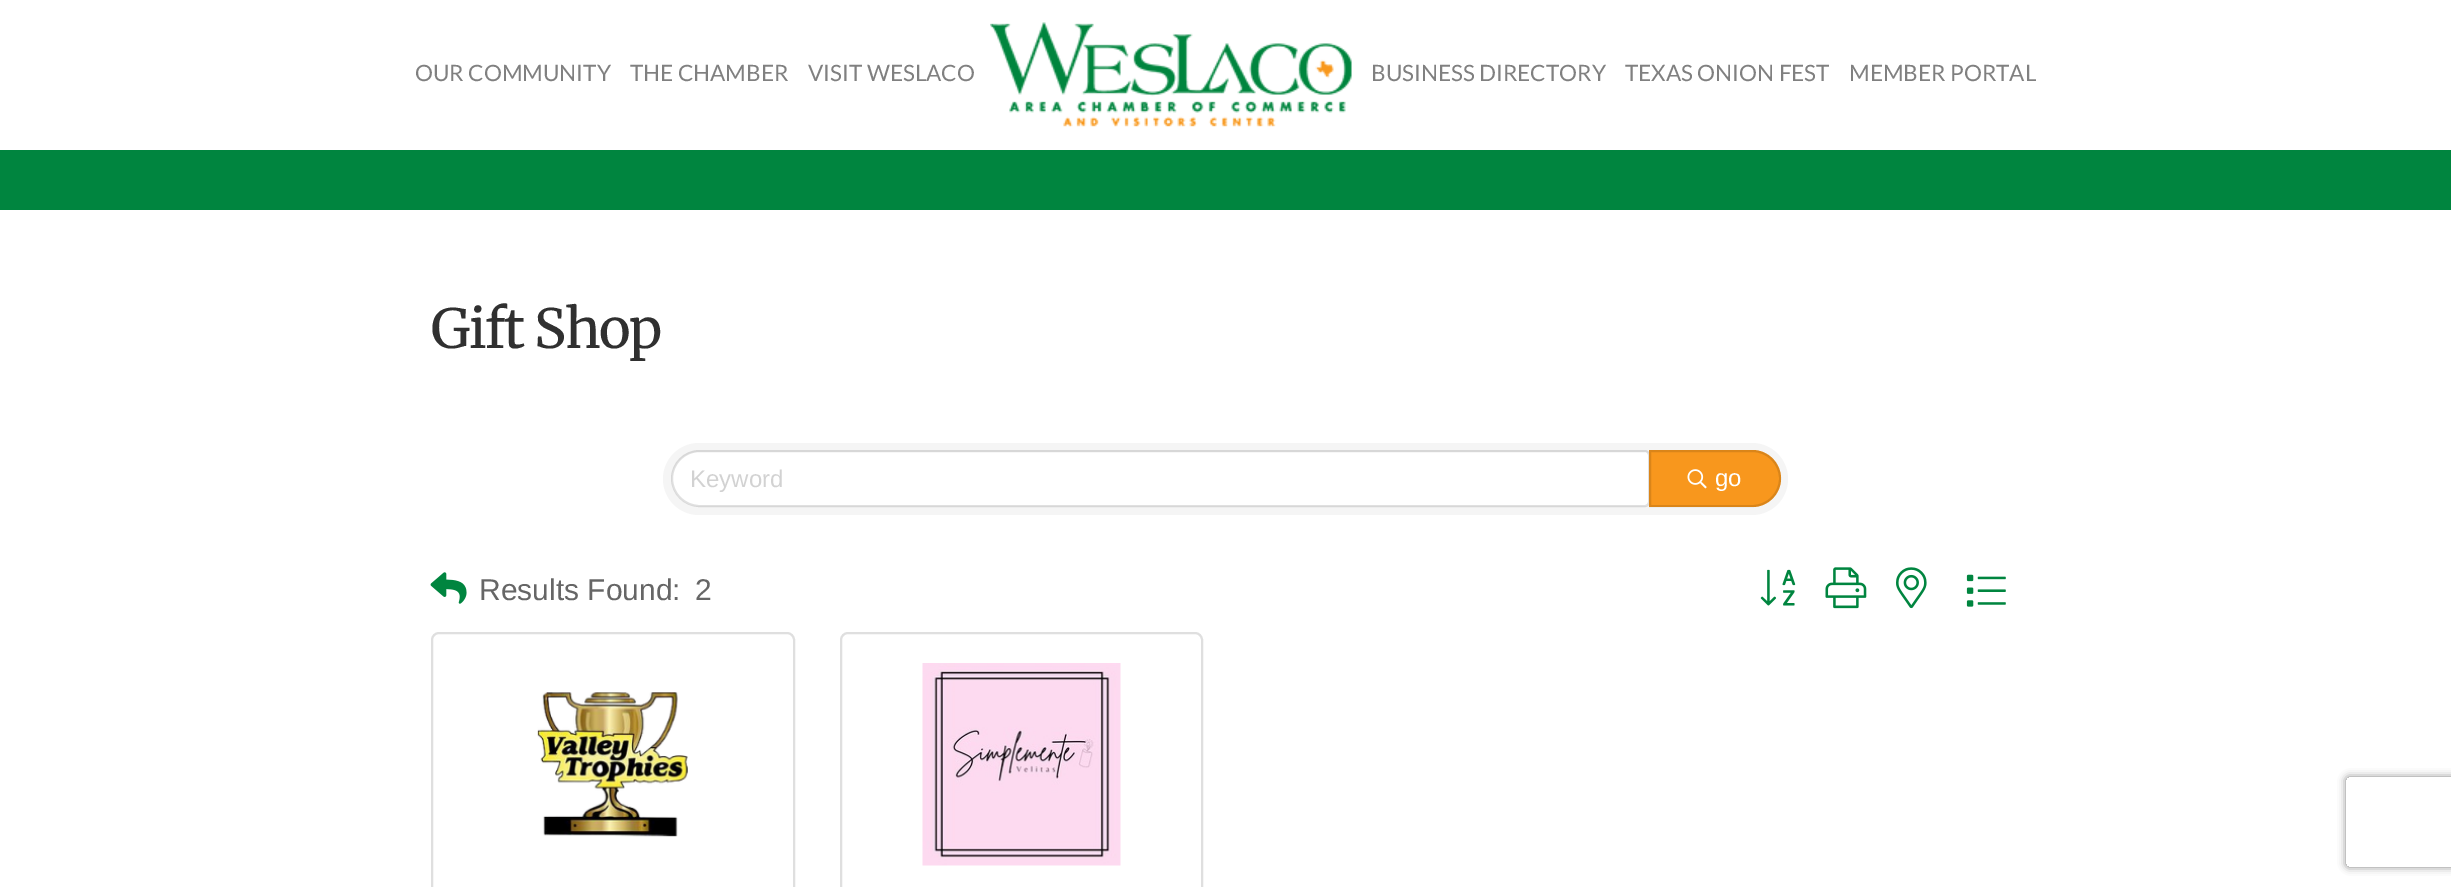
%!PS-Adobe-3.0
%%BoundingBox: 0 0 2451 887
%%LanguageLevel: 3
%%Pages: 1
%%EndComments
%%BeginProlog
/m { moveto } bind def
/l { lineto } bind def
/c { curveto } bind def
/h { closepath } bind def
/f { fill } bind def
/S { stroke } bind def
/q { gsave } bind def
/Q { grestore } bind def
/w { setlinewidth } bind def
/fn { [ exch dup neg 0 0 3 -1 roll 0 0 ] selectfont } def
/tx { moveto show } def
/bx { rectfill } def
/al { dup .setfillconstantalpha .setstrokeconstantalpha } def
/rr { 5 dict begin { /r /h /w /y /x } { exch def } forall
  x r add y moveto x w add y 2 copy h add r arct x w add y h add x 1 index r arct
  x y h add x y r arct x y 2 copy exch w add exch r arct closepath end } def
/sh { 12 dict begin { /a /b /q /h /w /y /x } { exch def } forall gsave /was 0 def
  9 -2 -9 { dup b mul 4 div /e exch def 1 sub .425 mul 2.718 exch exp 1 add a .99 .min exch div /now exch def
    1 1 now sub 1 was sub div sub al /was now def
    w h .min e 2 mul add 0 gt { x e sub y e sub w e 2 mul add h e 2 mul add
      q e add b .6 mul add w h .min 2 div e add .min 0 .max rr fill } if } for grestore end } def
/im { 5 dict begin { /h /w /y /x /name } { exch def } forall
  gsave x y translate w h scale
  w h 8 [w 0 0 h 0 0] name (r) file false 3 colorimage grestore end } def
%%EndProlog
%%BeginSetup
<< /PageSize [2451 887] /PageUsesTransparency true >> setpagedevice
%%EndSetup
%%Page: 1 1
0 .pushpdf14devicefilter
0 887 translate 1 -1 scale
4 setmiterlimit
1 setgray
0 0 2451 887 bx
/Lato-Regular 22.5 fn
0.502 setgray
(OUR COMMUNITY) 415 81 tx
(THE CHAMBER) 630 81 tx
(VISIT WESLACO) 808 81 tx
(image0.raw) 990 22 362 105 im
(BUSINESS DIRECTORY) 1371 81 tx
(TEXAS ONION FEST) 1625 81 tx
(MEMBER PORTAL) 1849 81 tx
0 0.522 0.247 setrgbcolor
0 150 2451 60 bx
/Merriweather-Regular 54 fn
0.188 setgray
431 348 m -1.5 0 (Gift Shop) ashow
0.961 setgray
663 443 1125 72 36 rr f
1 setgray
699 452 m 1646 452 l 1647.5 452 1649 453.5 1649 455 c 1649 503 l 1649 504.5 1647.5 506 1646 506 c 699 506 l 684 506 672 494 672 479 c 672 464 684 452 699 452 c h f
0.12 al
0 setgray
2 w
699.5 451 m 1645 451 l 1647 451 1649 453 1649 455 c 1649 502 l 1649 504 1647 506 1645 506 c 699.5 506 l 684.5 506 672 493.5 672 478.5 c 672 463.5 684.5 451 699.5 451 c h S
/LiberationSans-Regular 24 fn
1 al
0.824 setgray
(Keyword) 690 487 tx
0.973 0.592 0.114 setrgbcolor
1649 450 m 1752.5 450 l 1768 450 1781 463 1781 478.5 c 1781 494 1768 507 1752.5 507 c 1649 507 l h f
0.12 al
0 setgray
1650 451 m 1752.5 451 l 1767.5 451 1780 463.5 1780 478.5 c 1780 493.5 1767.5 506 1752.5 506 c 1650 506 l h S
1 al
(image1.raw) 1687 469 20 20 im
1 setgray
(go) 1715 486 tx
(image2.raw) 430 572 37 32 im
/LiberationSans-Regular 30 fn
0.4 setgray
(Results Found:) 479 600 tx
(2) 695 600 tx
(image3.raw) 1760 569 36 37 im
(image4.raw) 1825 567 42 42 im
(image5.raw) 1896 567 31 42 im
(image6.raw) 1966 574 40 33 im
0.875 setgray
432 633 362 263 7 rr S
(image7.raw) 537 692 151 145 im
841 633 361 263 7 rr S
(image8.raw) 922 663 199 203 im
q
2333 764 m 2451 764 l 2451 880 l 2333 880 l h 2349 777 m 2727 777 l 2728.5 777 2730 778.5 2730 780 c 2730 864 l 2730 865.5 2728.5 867 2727 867 c 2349 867 l 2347.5 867 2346 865.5 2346 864 c 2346 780 l 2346 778.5 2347.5 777 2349 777 c h eoclip newpath
0.502 setgray
2346 777 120 90 3 4 1 sh
Q
.poppdf14devicefilter showpage
%%EOF
